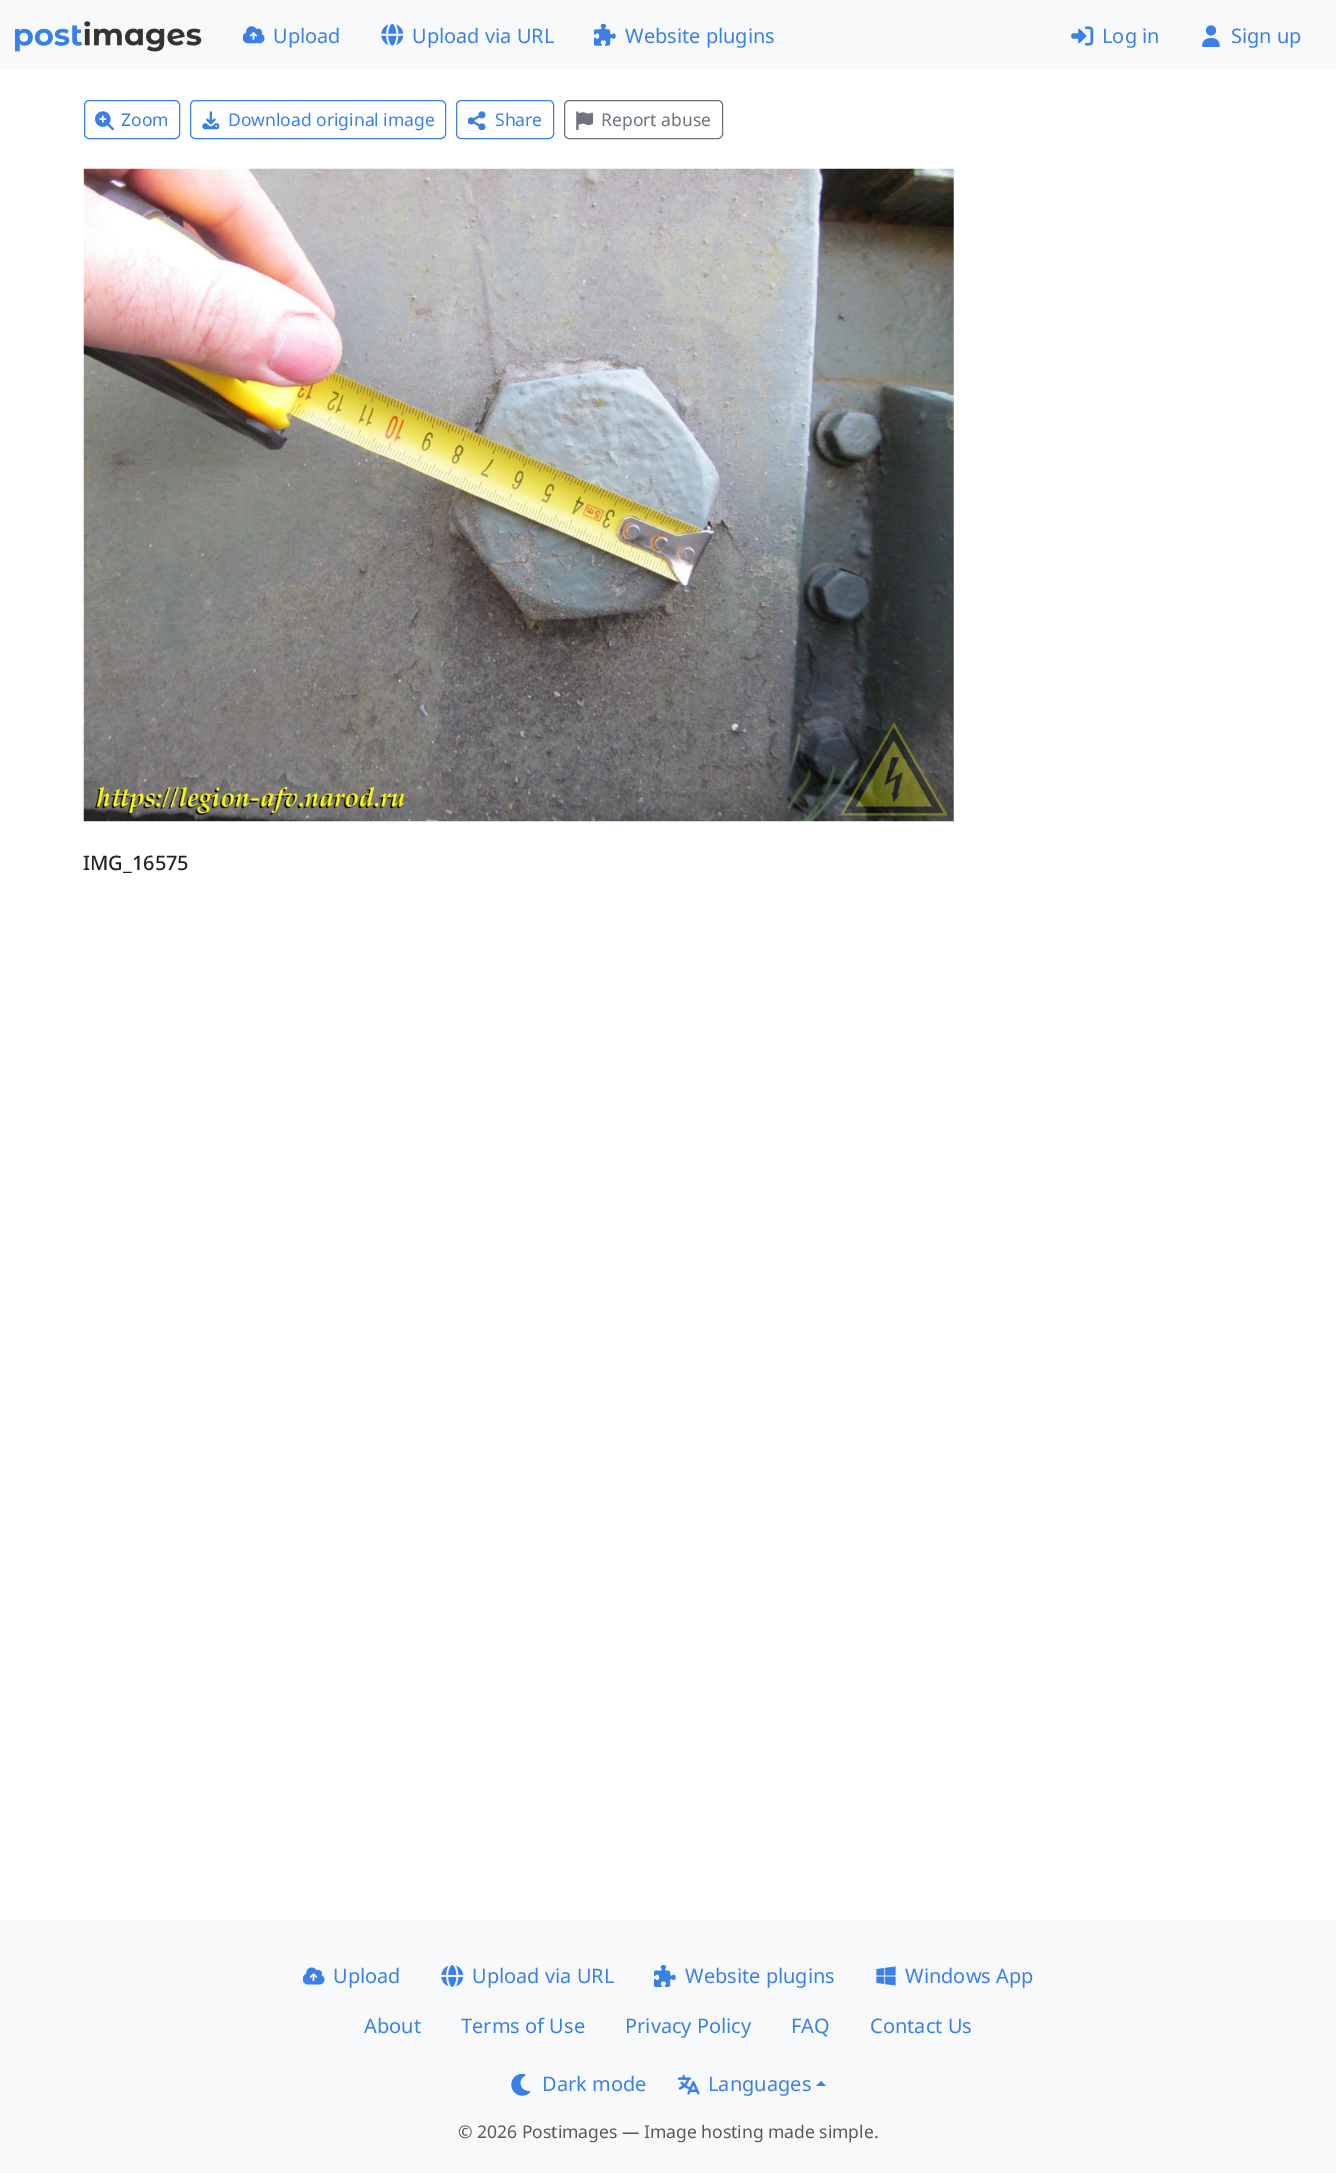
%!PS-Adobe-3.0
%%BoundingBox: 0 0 1336 2173
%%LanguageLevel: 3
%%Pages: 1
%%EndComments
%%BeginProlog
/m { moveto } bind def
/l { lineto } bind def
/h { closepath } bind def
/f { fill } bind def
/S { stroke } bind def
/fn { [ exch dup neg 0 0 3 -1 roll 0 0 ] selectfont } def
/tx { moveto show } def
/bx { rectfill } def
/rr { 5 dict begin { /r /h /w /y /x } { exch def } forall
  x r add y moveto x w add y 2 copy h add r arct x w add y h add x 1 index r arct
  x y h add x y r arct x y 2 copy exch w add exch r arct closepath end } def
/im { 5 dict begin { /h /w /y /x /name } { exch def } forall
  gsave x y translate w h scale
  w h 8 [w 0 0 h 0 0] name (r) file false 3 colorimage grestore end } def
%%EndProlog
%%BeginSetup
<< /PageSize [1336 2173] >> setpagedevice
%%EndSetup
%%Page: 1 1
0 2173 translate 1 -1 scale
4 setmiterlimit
1 setgray
0 0 1336 2173 bx
0.973 0.976 0.98 setrgbcolor
0 0 1336 70 bx
(image0.raw) 15 21 187 31 im
(image1.raw) 243 26 22 18 im
/NotoSans-Regular 20 fn
0.227 0.502 0.918 setrgbcolor
(Upload) 273 43 tx
(image2.raw) 381 24 22 22 im
(Upload via URL) 412 43 tx
(image3.raw) 594 24 22 22 im
(Website plugins) 625 43 tx
(image4.raw) 1071 26 23 20 im
(Log in) 1102 43 tx
(image5.raw) 1202 25 18 22 im
(Sign up) 1231 43 tx
84.5 100.5 95 38 4.5 rr S
(image6.raw) 95 111 19 19 im
/NotoSans-Regular 17.5 fn
(Zoom) 121 126 tx
190.5 100.5 255 38 4.5 rr S
(image7.raw) 202 111 18 19 im
(Download original image) 228 126 tx
456.5 100.5 97 38 4.5 rr S
(image8.raw) 468 111 18 19 im
(Share) 495 126 tx
0.424 0.459 0.49 setrgbcolor
564.5 100.5 158 38 4.5 rr S
(image9.raw) 576 111 18 19 im
(Report abuse) 601 126 tx
(image10.raw) 83 168 871 654 im
/NotoSans-Medium 20 fn
0.129 0.145 0.161 setrgbcolor
(IMG_16575) 83 870 tx
0.973 0.976 0.98 setrgbcolor
0 1920 1336 253 bx
(image11.raw) 303 1967 22 18 im
/NotoSans-Regular 20 fn
0.227 0.502 0.918 setrgbcolor
(Upload) 333 1983 tx
(image12.raw) 441 1965 22 22 im
(Upload via URL) 472 1983 tx
(image13.raw) 654 1965 22 22 im
(Website plugins) 685 1983 tx
(image14.raw) 876 1966 20 20 im
(Windows App) 905 1983 tx
(About) 364 2033 tx
(Terms of Use) 461 2033 tx
(Privacy Policy) 625 2033 tx
(FAQ) 791 2033 tx
(Contact Us) 870 2033 tx
(image15.raw) 511 2074 20 22 im
(Dark mode) 542 2091 tx
(image16.raw) 678 2075 22 20 im
(Languages) 708 2091 tx
826 2086 m 816 2086 l 821 2081 l h f
/NotoSans-Regular 17.5 fn
0.341 0.353 0.365 setrgbcolor
(© 2026 Postimages — Image hosting made simple.) 458 2138 tx
showpage
%%EOF
